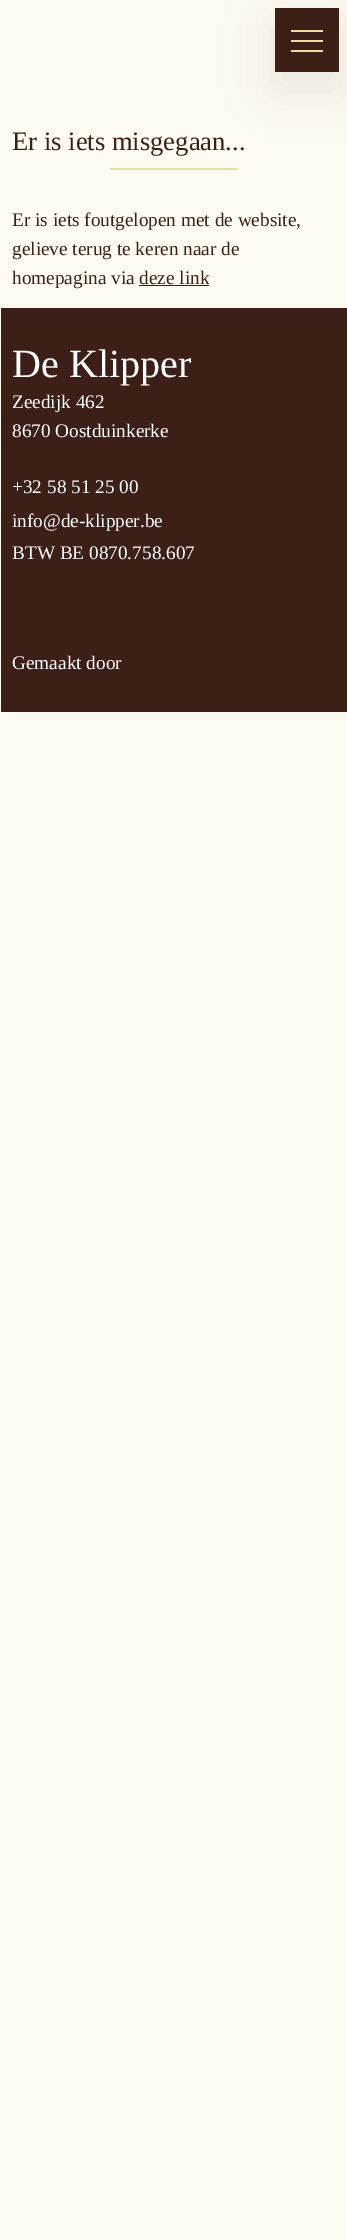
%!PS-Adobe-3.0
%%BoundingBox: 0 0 347 2240
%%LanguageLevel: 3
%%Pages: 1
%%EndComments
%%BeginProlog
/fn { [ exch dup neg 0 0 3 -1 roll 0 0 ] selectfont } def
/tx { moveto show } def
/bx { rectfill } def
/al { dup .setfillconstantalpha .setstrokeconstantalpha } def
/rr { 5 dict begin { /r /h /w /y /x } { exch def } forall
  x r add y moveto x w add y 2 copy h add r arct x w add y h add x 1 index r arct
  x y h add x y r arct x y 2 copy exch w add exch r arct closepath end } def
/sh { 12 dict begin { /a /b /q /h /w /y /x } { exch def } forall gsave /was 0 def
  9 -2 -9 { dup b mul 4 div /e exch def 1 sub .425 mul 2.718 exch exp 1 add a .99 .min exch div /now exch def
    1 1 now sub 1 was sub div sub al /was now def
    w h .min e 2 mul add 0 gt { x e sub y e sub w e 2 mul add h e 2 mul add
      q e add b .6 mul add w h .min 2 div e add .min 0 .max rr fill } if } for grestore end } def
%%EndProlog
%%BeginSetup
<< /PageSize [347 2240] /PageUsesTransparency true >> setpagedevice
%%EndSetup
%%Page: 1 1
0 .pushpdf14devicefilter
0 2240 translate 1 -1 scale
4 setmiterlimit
0.992 0.98 0.941 setrgbcolor
0 0 347 2240 bx
0.235 0.122 0.09 setrgbcolor
275 24 64 64 0 24 0.1 sh
275 8 64 64 bx
0.933 0.863 0.647 setrgbcolor
291 40 32 2 bx
291 30 32 2 bx
291 50 32 2 bx
/LiberationSerif-Regular 26.6 fn
0.235 0.122 0.09 setrgbcolor
(Er is iets misgegaan...) 12 150 tx
0.933 0.863 0.647 setrgbcolor
110 168 128 2 bx
/LiberationSerif-Regular 19.25 fn
0.235 0.122 0.09 setrgbcolor
(Er is iets foutgelopen met de website,) 12 226 tx
(gelieve terug te keren naar de) 12 255 tx
(homepagina via deze link) 12 284 tx
139 285 70 1 bx
1 308 346 404 bx
/LiberationSerif-Regular 40 fn
1 setgray
(De Klipper) 12 377 tx
/LiberationSerif-Regular 19.25 fn
(Zeedijk 462) 12 408 tx
(8670 Oostduinkerke) 12 437 tx
(+32 58 51 25 00) 12 493 tx
(info@de-klipper.be) 12 527 tx
(BTW BE 0870.758.607) 12 559 tx
(Gemaakt door) 12 669 tx
.poppdf14devicefilter showpage
%%EOF
